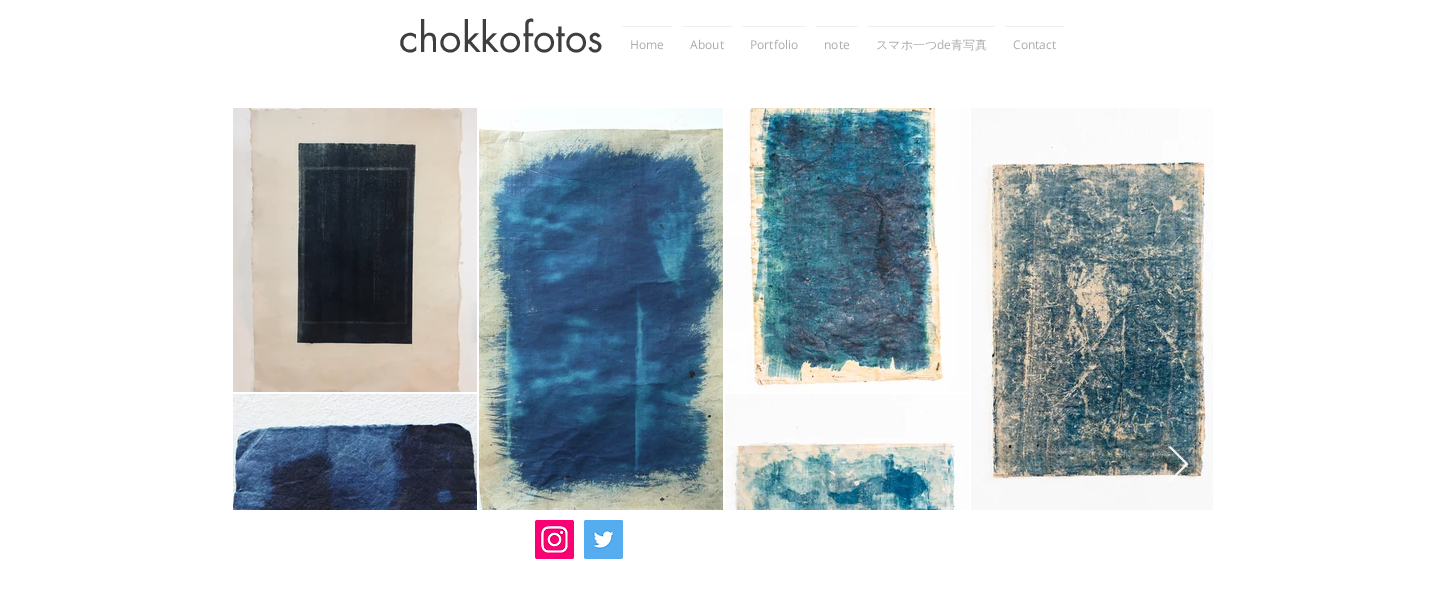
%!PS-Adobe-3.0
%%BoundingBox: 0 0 1446 589
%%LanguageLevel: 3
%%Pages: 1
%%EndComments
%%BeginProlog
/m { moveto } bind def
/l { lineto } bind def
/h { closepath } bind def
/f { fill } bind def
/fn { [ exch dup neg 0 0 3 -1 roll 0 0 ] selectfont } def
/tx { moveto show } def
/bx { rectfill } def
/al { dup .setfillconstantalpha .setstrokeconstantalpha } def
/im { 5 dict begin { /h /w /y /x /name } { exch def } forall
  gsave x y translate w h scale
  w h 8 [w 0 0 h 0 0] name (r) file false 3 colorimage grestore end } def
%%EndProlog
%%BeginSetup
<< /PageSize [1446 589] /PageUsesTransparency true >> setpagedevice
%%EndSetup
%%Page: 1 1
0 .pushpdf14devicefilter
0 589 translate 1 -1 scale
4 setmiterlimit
1 setgray
0 0 1446 589 bx
/futura-Regular 40 fn
0.243 setgray
(chokkofotos) 399 52 tx
0.937 setgray
622 26 50 1 bx
/OpenSans-Regular 12 fn
0.671 setgray
(Home) 630 49 tx
0.937 setgray
682 26 50 1 bx
0.671 setgray
(About) 690 49 tx
0.937 setgray
742 26 64 1 bx
0.671 setgray
(Portfolio) 750 49 tx
0.937 setgray
816 26 42 1 bx
0.671 setgray
(note) 824 49 tx
0.937 setgray
868 26 127 1 bx
/WenQuanYiZenHei-Medium 12 fn
0.671 setgray
(スマホ一つ) 876 49 tx
/OpenSans-Regular 12 fn
(de) 937 49 tx
/WenQuanYiZenHei-Medium 12 fn
(青写真) 951 49 tx
0.937 setgray
1005 26 59 1 bx
/OpenSans-Regular 12 fn
0.671 setgray
(Contact) 1013 49 tx
(image0.raw) 233 108 244 284 im
(image1.raw) 233 394 244 116 im
(image2.raw) 479 108 244 402 im
(image3.raw) 725 108 244 284 im
(image4.raw) 725 394 244 116 im
(image5.raw) 971 108 242 402 im
0.9 al
1 setgray
1169 447.5 m 1170.5 446 l 1188.5 464 l 1170.5 482 l 1169 480.5 l 1185.5 464 l h f
1 al
(image6.raw) 535 520 39 39 im
(image7.raw) 584 520 39 39 im
.poppdf14devicefilter showpage
%%EOF
